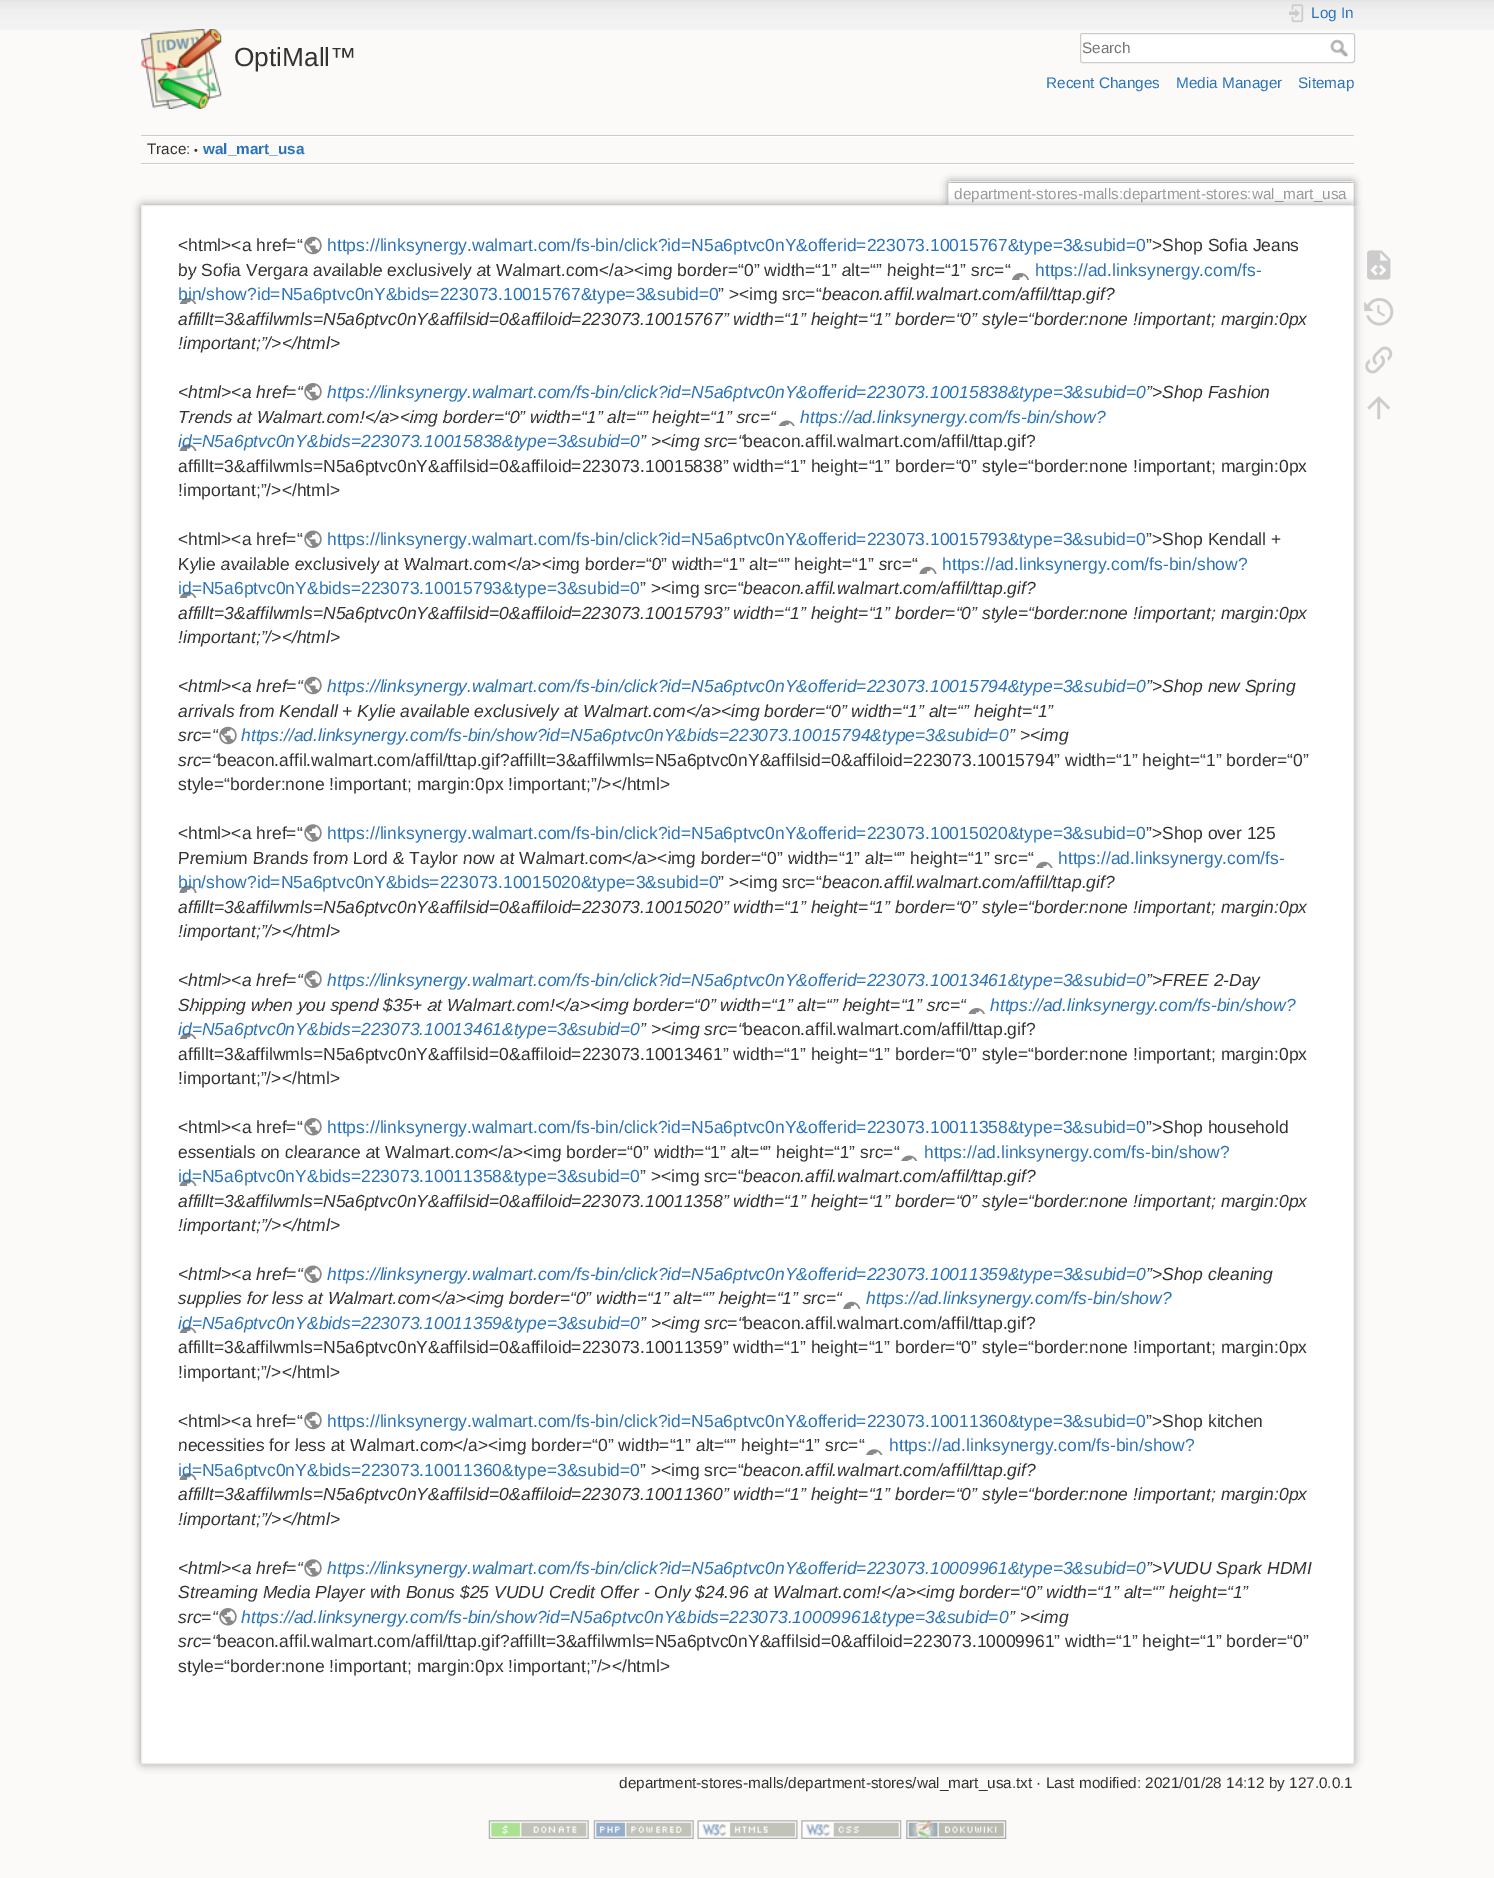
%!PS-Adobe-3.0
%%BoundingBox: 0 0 1494 1878
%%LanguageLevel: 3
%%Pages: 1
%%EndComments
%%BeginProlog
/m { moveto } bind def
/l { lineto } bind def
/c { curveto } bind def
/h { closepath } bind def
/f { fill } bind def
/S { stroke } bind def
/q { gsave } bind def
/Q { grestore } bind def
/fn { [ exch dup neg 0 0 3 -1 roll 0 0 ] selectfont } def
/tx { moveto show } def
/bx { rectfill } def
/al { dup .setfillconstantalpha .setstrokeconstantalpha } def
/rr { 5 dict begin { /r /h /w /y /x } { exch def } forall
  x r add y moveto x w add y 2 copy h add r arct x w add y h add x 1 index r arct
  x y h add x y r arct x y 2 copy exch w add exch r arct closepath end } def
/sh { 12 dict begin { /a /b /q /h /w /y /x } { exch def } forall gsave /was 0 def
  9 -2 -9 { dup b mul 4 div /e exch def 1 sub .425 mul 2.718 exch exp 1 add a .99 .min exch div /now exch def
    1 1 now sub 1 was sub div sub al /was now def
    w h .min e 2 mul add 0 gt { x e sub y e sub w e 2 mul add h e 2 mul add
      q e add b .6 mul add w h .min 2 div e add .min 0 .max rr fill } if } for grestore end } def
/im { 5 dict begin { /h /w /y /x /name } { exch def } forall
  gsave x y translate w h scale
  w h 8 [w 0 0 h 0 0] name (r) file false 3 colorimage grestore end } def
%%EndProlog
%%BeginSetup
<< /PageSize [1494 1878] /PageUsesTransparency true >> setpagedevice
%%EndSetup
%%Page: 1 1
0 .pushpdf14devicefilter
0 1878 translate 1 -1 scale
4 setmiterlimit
0.984 0.98 0.976 setrgbcolor
0 0 1494 1878 bx
(image0.raw) 0 0 1494 30 im
(image1.raw) 141 29 81 80 im
/LiberationSans-Regular 26.25 fn
0.2 setgray
(OptiMall™) 234 66 tx
(image2.raw) 1289 4 15 19 im
/LiberationSans-Regular 15.3 fn
0.169 0.451 0.718 setrgbcolor
(Log In) 1311 18 tx
1 setgray
1080.5 33.5 274 29 2 rr q f Q
0.8 setgray
S
0.459 setgray
(Search) 1082 53 tx
(image3.raw) 1330 39 18 18 im
0.169 0.451 0.718 setrgbcolor
(Recent Changes) 1046 88 tx
(Media Manager) 1176 88 tx
(Sitemap) 1298 88 tx
0.8 setgray
141 135 1213 1 bx
1 setgray
141 164 1213 1 bx
141 136 1213 1 bx
0.8 setgray
141 163 1213 1 bx
0.2 setgray
(Trace:) 147 154 tx
/LiberationSans-Regular 11 fn
(•) 194 154 tx
/LiberationSans-Bold 15.3 fn
0.169 0.451 0.718 setrgbcolor
(wal_mart_usa) 203 154 tx
q
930 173 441 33 rectclip
0.6 setgray
948 181 406 25 2.5 4 1 sh
Q
1 setgray
950 183 m 1352 183 l 1352.5 183 1353 183.5 1353 184 c 1353 206 l 949 206 l 949 184 l 949 183.5 949.5 183 950 183 c h f
0.933 setgray
949 181 404 1 bx
1353 183 1 23 bx
948 183 1 23 bx
/LiberationSans-Regular 15.3 fn
0.6 setgray
(department-stores-malls:department-stores:wal_mart_usa) 954 199 tx
141 205 1213 1559 2.5 4.5 1 sh
1 setgray
141.5 205.5 1212 1558 2 rr q f Q
0.933 setgray
S
/LiberationSans-Regular 17.5 fn
0.2 setgray
(<html><a href=“) 178 251 tx
(image4.raw) 304 236 18 19 im
0.169 0.451 0.718 setrgbcolor
(https://linksynergy.walmart.com/fs-bin/click?id=N5a6ptvc0nY&offerid=223073.10015767&type=3&subid=0) 327 251 tx
0.2 setgray
(”>Shop Sofia Jeans) 1146 251 tx
(by Sofia Vergara available exclusively at Walmart.com</a><img border=“0” width=“1” alt=“” height=“1” src=“) 178 276 tx
0.169 0.451 0.718 setrgbcolor
(https://ad.linksynergy.com/fs-) 1035 276 tx
(image5.raw) 179 273 850 31 im
(bin/show?id=N5a6ptvc0nY&bids=223073.10015767&type=3&subid=0) 178 300 tx
0.2 setgray
(” ><img src=“) 718 300 tx
/LiberationSans-Italic 17.5 fn
(beacon.affil.walmart.com/affil/ttap.gif?) 822 300 tx
(affillt=3&affilwmls=N5a6ptvc0nY&affilsid=0&affiloid=223073.10015767” width=“1” height=“1” border=“0” style=“border:none !important; margin:0px) 178 325 tx
(!important;”/></html>) 178 349 tx
(<html><a href=“) 178 398 tx
(image6.raw) 304 383 18 18 im
0.169 0.451 0.718 setrgbcolor
(https://linksynergy.walmart.com/fs-bin/click?id=N5a6ptvc0nY&offerid=223073.10015838&type=3&subid=0) 327 398 tx
0.2 setgray
(”>Shop Fashion) 1146 398 tx
(Trends at Walmart.com!</a><img border=“0” width=“1” alt=“” height=“1” src=“) 178 423 tx
0.169 0.451 0.718 setrgbcolor
(https://ad.linksynergy.com/fs-bin/show?) 800 423 tx
(image7.raw) 179 420 616 31 im
(id=N5a6ptvc0nY&bids=223073.10015838&type=3&subid=0) 178 447 tx
0.2 setgray
(” ><img src=“) 640 447 tx
/LiberationSans-Regular 17.5 fn
(beacon.affil.walmart.com/affil/ttap.gif?) 743 447 tx
(affillt=3&affilwmls=N5a6ptvc0nY&affilsid=0&affiloid=223073.10015838” width=“1” height=“1” border=“0” style=“border:none !important; margin:0px) 178 472 tx
(!important;”/></html>) 178 496 tx
(<html><a href=“) 178 545 tx
(image8.raw) 304 530 18 18 im
0.169 0.451 0.718 setrgbcolor
(https://linksynergy.walmart.com/fs-bin/click?id=N5a6ptvc0nY&offerid=223073.10015793&type=3&subid=0) 327 545 tx
0.2 setgray
(”>Shop Kendall +) 1146 545 tx
(Kylie available exclusively at Walmart.com</a><img border=“0” width=“1” alt=“” height=“1” src=“) 178 570 tx
0.169 0.451 0.718 setrgbcolor
(https://ad.linksynergy.com/fs-bin/show?) 942 570 tx
(image9.raw) 179 566 758 32 im
(id=N5a6ptvc0nY&bids=223073.10015793&type=3&subid=0) 178 594 tx
0.2 setgray
(” ><img src=“) 640 594 tx
/LiberationSans-Italic 17.5 fn
(beacon.affil.walmart.com/affil/ttap.gif?) 743 594 tx
(affillt=3&affilwmls=N5a6ptvc0nY&affilsid=0&affiloid=223073.10015793” width=“1” height=“1” border=“0” style=“border:none !important; margin:0px) 178 619 tx
(!important;”/></html>) 178 643 tx
(<html><a href=“) 178 692 tx
(image4.raw) 304 676 18 19 im
0.169 0.451 0.718 setrgbcolor
(https://linksynergy.walmart.com/fs-bin/click?id=N5a6ptvc0nY&offerid=223073.10015794&type=3&subid=0) 327 692 tx
0.2 setgray
(”>Shop new Spring) 1146 692 tx
(arrivals from Kendall + Kylie available exclusively at Walmart.com</a><img border=“0” width=“1” alt=“” height=“1”) 178 717 tx
(src=“) 178 741 tx
(image4.raw) 219 726 18 19 im
0.169 0.451 0.718 setrgbcolor
(https://ad.linksynergy.com/fs-bin/show?id=N5a6ptvc0nY&bids=223073.10015794&type=3&subid=0) 241 741 tx
0.2 setgray
(” ><img) 1009 741 tx
(src=“) 178 766 tx
/LiberationSans-Regular 17.5 fn
(beacon.affil.walmart.com/affil/ttap.gif?affillt=3&affilwmls=N5a6ptvc0nY&affilsid=0&affiloid=223073.10015794” width=“1” height=“1” border=“0”) 217 766 tx
(style=“border:none !important; margin:0px !important;”/></html>) 178 790 tx
(<html><a href=“) 178 839 tx
(image10.raw) 304 824 18 18 im
0.169 0.451 0.718 setrgbcolor
(https://linksynergy.walmart.com/fs-bin/click?id=N5a6ptvc0nY&offerid=223073.10015020&type=3&subid=0) 327 839 tx
0.2 setgray
(”>Shop over 125) 1146 839 tx
(Premium Brands from Lord & Taylor now at Walmart.com</a><img border=“0” width=“1” alt=“” height=“1” src=“) 178 864 tx
0.169 0.451 0.718 setrgbcolor
(https://ad.linksynergy.com/fs-) 1058 864 tx
(image11.raw) 179 861 874 32 im
(bin/show?id=N5a6ptvc0nY&bids=223073.10015020&type=3&subid=0) 178 888 tx
0.2 setgray
(” ><img src=“) 718 888 tx
/LiberationSans-Italic 17.5 fn
(beacon.affil.walmart.com/affil/ttap.gif?) 822 888 tx
(affillt=3&affilwmls=N5a6ptvc0nY&affilsid=0&affiloid=223073.10015020” width=“1” height=“1” border=“0” style=“border:none !important; margin:0px) 178 913 tx
(!important;”/></html>) 178 937 tx
(<html><a href=“) 178 986 tx
(image8.raw) 304 970 18 18 im
0.169 0.451 0.718 setrgbcolor
(https://linksynergy.walmart.com/fs-bin/click?id=N5a6ptvc0nY&offerid=223073.10013461&type=3&subid=0) 327 986 tx
0.2 setgray
(”>FREE 2-Day) 1146 986 tx
(Shipping when you spend $35+ at Walmart.com!</a><img border=“0” width=“1” alt=“” height=“1” src=“) 178 1011 tx
0.169 0.451 0.718 setrgbcolor
(https://ad.linksynergy.com/fs-bin/show?) 990 1011 tx
(image12.raw) 179 1008 806 31 im
(id=N5a6ptvc0nY&bids=223073.10013461&type=3&subid=0) 178 1035 tx
0.2 setgray
(” ><img src=“) 640 1035 tx
/LiberationSans-Regular 17.5 fn
(beacon.affil.walmart.com/affil/ttap.gif?) 743 1035 tx
(affillt=3&affilwmls=N5a6ptvc0nY&affilsid=0&affiloid=223073.10013461” width=“1” height=“1” border=“0” style=“border:none !important; margin:0px) 178 1060 tx
(!important;”/></html>) 178 1084 tx
(<html><a href=“) 178 1133 tx
(image6.raw) 304 1118 18 18 im
0.169 0.451 0.718 setrgbcolor
(https://linksynergy.walmart.com/fs-bin/click?id=N5a6ptvc0nY&offerid=223073.10011358&type=3&subid=0) 327 1133 tx
0.2 setgray
(”>Shop household) 1146 1133 tx
(essentials on clearance at Walmart.com</a><img border=“0” width=“1” alt=“” height=“1” src=“) 178 1158 tx
0.169 0.451 0.718 setrgbcolor
(https://ad.linksynergy.com/fs-bin/show?) 924 1158 tx
(image13.raw) 179 1155 739 31 im
(id=N5a6ptvc0nY&bids=223073.10011358&type=3&subid=0) 178 1182 tx
0.2 setgray
(” ><img src=“) 640 1182 tx
/LiberationSans-Italic 17.5 fn
(beacon.affil.walmart.com/affil/ttap.gif?) 743 1182 tx
(affillt=3&affilwmls=N5a6ptvc0nY&affilsid=0&affiloid=223073.10011358” width=“1” height=“1” border=“0” style=“border:none !important; margin:0px) 178 1207 tx
(!important;”/></html>) 178 1231 tx
(<html><a href=“) 178 1280 tx
(image8.raw) 304 1265 18 18 im
0.169 0.451 0.718 setrgbcolor
(https://linksynergy.walmart.com/fs-bin/click?id=N5a6ptvc0nY&offerid=223073.10011359&type=3&subid=0) 327 1280 tx
0.2 setgray
(”>Shop cleaning) 1146 1280 tx
(supplies for less at Walmart.com</a><img border=“0” width=“1” alt=“” height=“1” src=“) 178 1304 tx
0.169 0.451 0.718 setrgbcolor
(https://ad.linksynergy.com/fs-bin/show?) 866 1304 tx
(image14.raw) 179 1301 682 32 im
(id=N5a6ptvc0nY&bids=223073.10011359&type=3&subid=0) 178 1329 tx
0.2 setgray
(” ><img src=“) 640 1329 tx
/LiberationSans-Regular 17.5 fn
(beacon.affil.walmart.com/affil/ttap.gif?) 743 1329 tx
(affillt=3&affilwmls=N5a6ptvc0nY&affilsid=0&affiloid=223073.10011359” width=“1” height=“1” border=“0” style=“border:none !important; margin:0px) 178 1353 tx
(!important;”/></html>) 178 1378 tx
(<html><a href=“) 178 1427 tx
(image4.raw) 304 1411 18 19 im
0.169 0.451 0.718 setrgbcolor
(https://linksynergy.walmart.com/fs-bin/click?id=N5a6ptvc0nY&offerid=223073.10011360&type=3&subid=0) 327 1427 tx
0.2 setgray
(”>Shop kitchen) 1146 1427 tx
(necessities for less at Walmart.com</a><img border=“0” width=“1” alt=“” height=“1” src=“) 178 1451 tx
0.169 0.451 0.718 setrgbcolor
(https://ad.linksynergy.com/fs-bin/show?) 889 1451 tx
(image15.raw) 179 1449 704 31 im
(id=N5a6ptvc0nY&bids=223073.10011360&type=3&subid=0) 178 1476 tx
0.2 setgray
(” ><img src=“) 640 1476 tx
/LiberationSans-Italic 17.5 fn
(beacon.affil.walmart.com/affil/ttap.gif?) 743 1476 tx
(affillt=3&affilwmls=N5a6ptvc0nY&affilsid=0&affiloid=223073.10011360” width=“1” height=“1” border=“0” style=“border:none !important; margin:0px) 178 1500 tx
(!important;”/></html>) 178 1525 tx
(<html><a href=“) 178 1574 tx
(image10.raw) 304 1559 18 18 im
0.169 0.451 0.718 setrgbcolor
(https://linksynergy.walmart.com/fs-bin/click?id=N5a6ptvc0nY&offerid=223073.10009961&type=3&subid=0) 327 1574 tx
0.2 setgray
(”>VUDU Spark HDMI) 1146 1574 tx
(Streaming Media Player with Bonus $25 VUDU Credit Offer - Only $24.96 at Walmart.com!</a><img border=“0” width=“1” alt=“” height=“1”) 178 1598 tx
(src=“) 178 1623 tx
(image6.raw) 219 1608 18 18 im
0.169 0.451 0.718 setrgbcolor
(https://ad.linksynergy.com/fs-bin/show?id=N5a6ptvc0nY&bids=223073.10009961&type=3&subid=0) 241 1623 tx
0.2 setgray
(” ><img) 1009 1623 tx
(src=“) 178 1647 tx
/LiberationSans-Regular 17.5 fn
(beacon.affil.walmart.com/affil/ttap.gif?affillt=3&affilwmls=N5a6ptvc0nY&affilsid=0&affiloid=223073.10009961” width=“1” height=“1” border=“0”) 217 1647 tx
(style=“border:none !important; margin:0px !important;”/></html>) 178 1672 tx
/LiberationSans-Regular 15.3 fn
(department-stores-malls/department-stores/wal_mart_usa.txt · Last modified: 2021/01/28 14:12 by 127.0.0.1) 619 1788 tx
(image16.raw) 1367 250 24 30 im
(image17.raw) 1364 298 30 28 im
(image18.raw) 1365 346 28 28 im
(image19.raw) 1367 396 24 24 im
(image20.raw) 488 1820 101 19 im
(image21.raw) 593 1820 101 19 im
(image22.raw) 697 1820 101 19 im
(image23.raw) 801 1820 101 19 im
(image24.raw) 906 1820 101 19 im
.poppdf14devicefilter showpage
%%EOF
